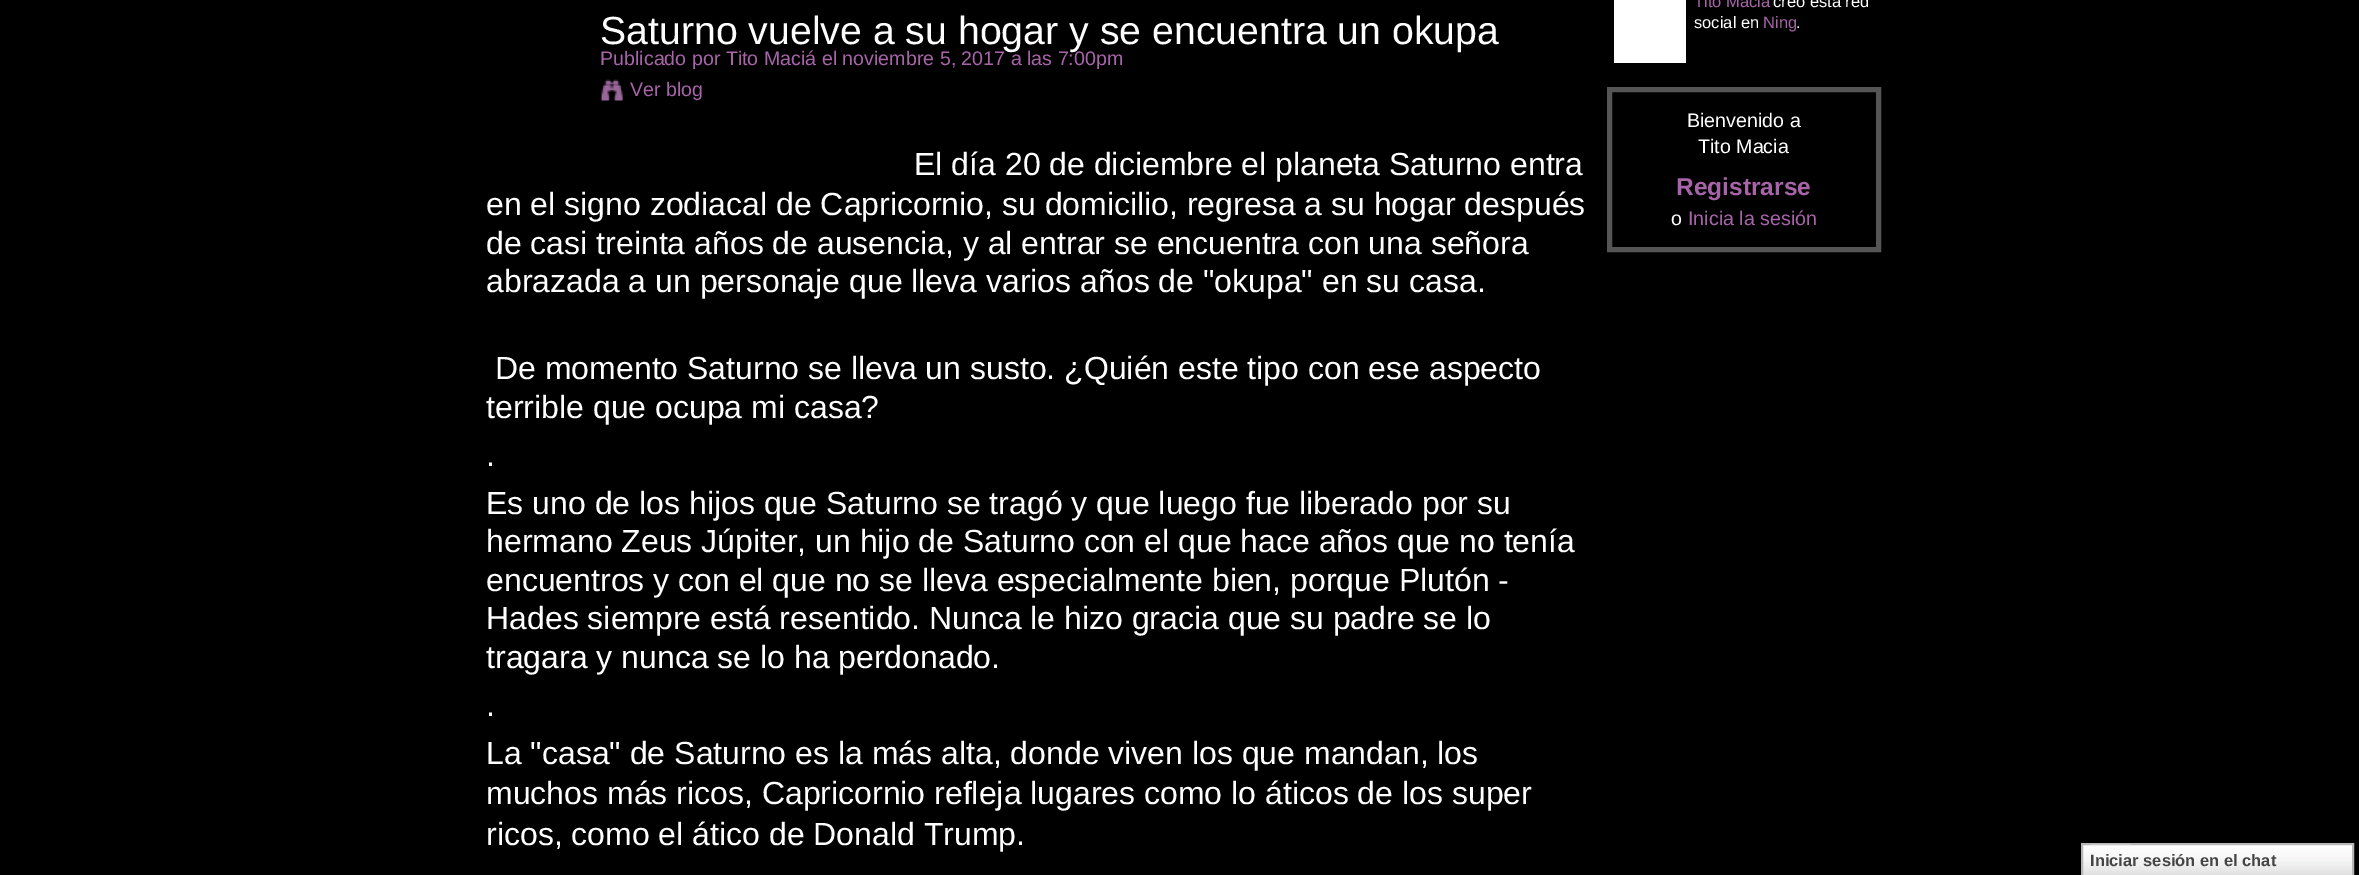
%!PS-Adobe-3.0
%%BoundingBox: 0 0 2359 875
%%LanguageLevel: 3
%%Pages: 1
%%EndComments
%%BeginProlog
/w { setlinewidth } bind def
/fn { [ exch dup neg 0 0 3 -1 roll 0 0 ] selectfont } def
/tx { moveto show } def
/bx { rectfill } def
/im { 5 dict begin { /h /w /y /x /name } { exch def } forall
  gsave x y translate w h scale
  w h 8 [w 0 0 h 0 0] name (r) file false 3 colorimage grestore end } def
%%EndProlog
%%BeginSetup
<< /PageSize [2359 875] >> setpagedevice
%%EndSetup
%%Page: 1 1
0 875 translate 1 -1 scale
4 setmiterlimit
0 setgray
0 0 2359 875 bx
/LiberationSans-Regular 39.25 fn
1 setgray
(Saturno vuelve a su hogar y se encuentra un okupa) 600 44 tx
/LiberationSans-Regular 19.65 fn
0.659 0.392 0.663 setrgbcolor
(Publicado por Tito Maciá el noviembre 5, 2017 a las 7:00pm) 600 65 tx
(image0.raw) 601 79 22 22 im
(Ver blog) 630 96 tx
/LiberationSans-Regular 32 fn
1 setgray
(El día 20 de diciembre el planeta Saturno entra) 914 175 tx
(en el signo zodiacal de Capricornio, su domicilio, regresa a su hogar después) 486 215 tx
(de casi treinta años de ausencia, y al entrar se encuentra con una señora) 486 254 tx
(abrazada a un personaje que lleva varios años de "okupa" en su casa.) 486 292 tx
(De momento Saturno se lleva un susto. ¿Quién este tipo con ese aspecto) 495 379 tx
(terrible que ocupa mi casa?) 486 418 tx
(.) 486 466 tx
(Es uno de los hijos que Saturno se tragó y que luego fue liberado por su) 486 514 tx
(hermano Zeus Júpiter, un hijo de Saturno con el que hace años que no tenía) 486 552 tx
(encuentros y con el que no se lleva especialmente bien, porque Plutón -) 486 591 tx
(Hades siempre está resentido. Nunca le hizo gracia que su padre se lo) 486 629 tx
(tragara y nunca se lo ha perdonado.) 486 668 tx
(.) 486 716 tx
(La "casa" de Saturno es la más alta, donde viven los que mandan, los) 486 764 tx
(muchos más ricos, Capricornio refleja lugares como lo áticos de los super) 486 804 tx
(ricos, como el ático de Donald Trump.) 486 845 tx
1614 0 72 63 bx
/LiberationSans-Regular 16.5 fn
0.659 0.392 0.663 setrgbcolor
(Tito Maciá) 1694 7 tx
1 setgray
(creó esta red) 1773 7 tx
(social en) 1694 28 tx
0.659 0.392 0.663 setrgbcolor
(Ning) 1763 28 tx
1 setgray
(.) 1796 28 tx
0.333 setgray
5 w
1609.5 89.5 269 160 rectstroke
/LiberationSans-Regular 19.65 fn
1 setgray
(Bienvenido a) 1687 127 tx
(Tito Macia) 1698 153 tx
/LiberationSans-Bold 24.5 fn
0.659 0.392 0.663 setrgbcolor
(Registrarse) 1676 195 tx
/LiberationSans-Regular 19.65 fn
1 setgray
(o) 1671 225 tx
0.659 0.392 0.663 setrgbcolor
(Inicia la sesión) 1688 225 tx
(image1.raw) 2083 845 269 30 im
0.718 setgray
2 w
2082 844 271 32 rectstroke
(image2.raw) 2089 844 41 1 im
/LiberationSans-Bold 16.5 fn
0.271 setgray
(Iniciar sesión en el chat) 2090 866 tx
showpage
%%EOF
